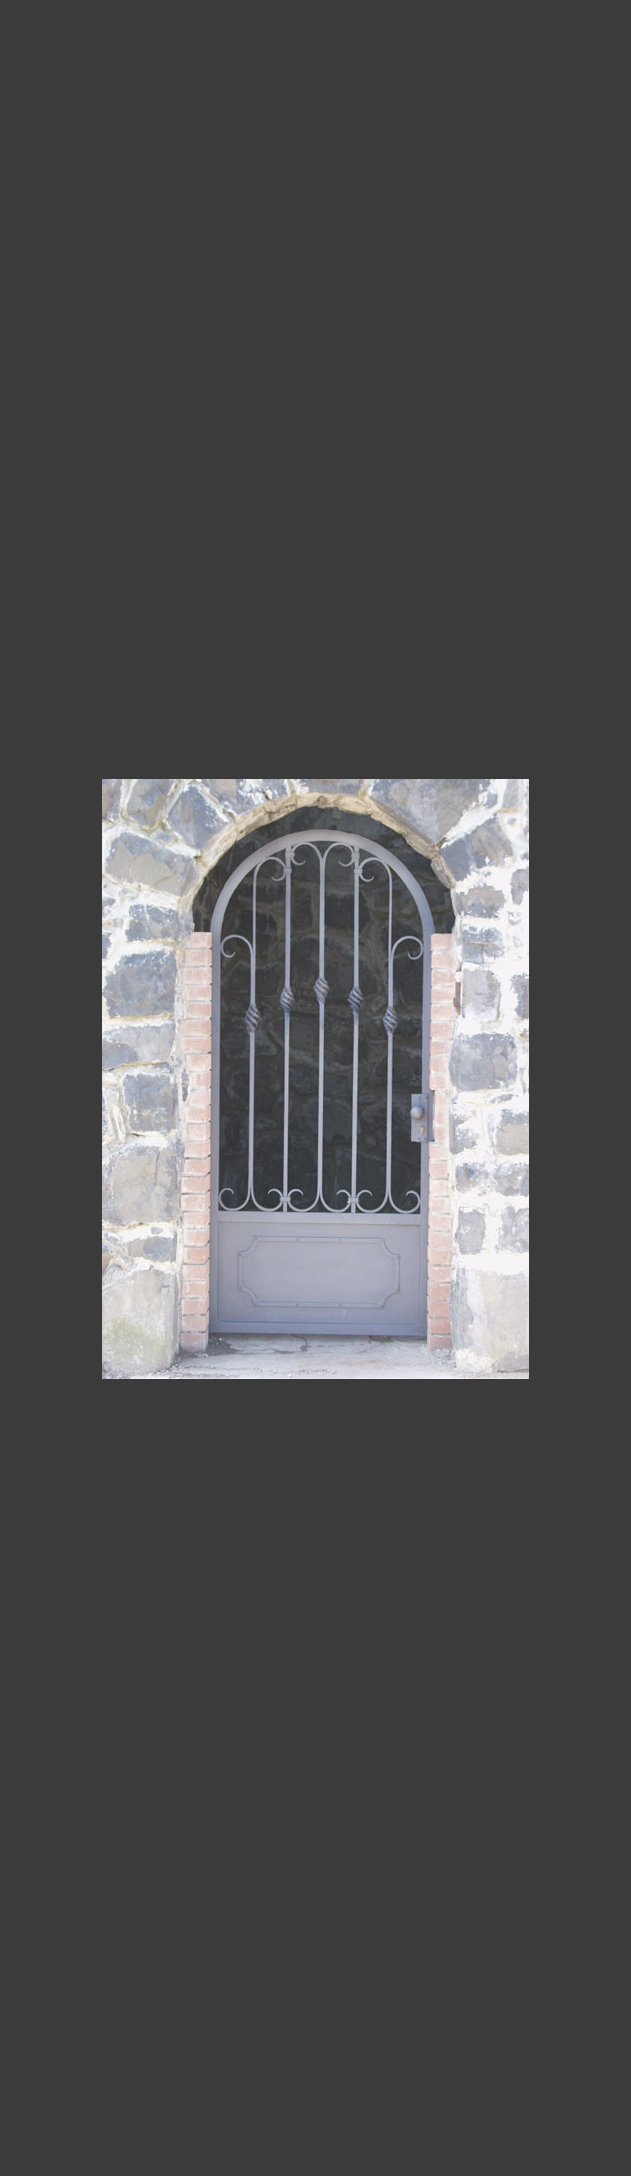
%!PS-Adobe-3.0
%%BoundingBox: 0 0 631 2176
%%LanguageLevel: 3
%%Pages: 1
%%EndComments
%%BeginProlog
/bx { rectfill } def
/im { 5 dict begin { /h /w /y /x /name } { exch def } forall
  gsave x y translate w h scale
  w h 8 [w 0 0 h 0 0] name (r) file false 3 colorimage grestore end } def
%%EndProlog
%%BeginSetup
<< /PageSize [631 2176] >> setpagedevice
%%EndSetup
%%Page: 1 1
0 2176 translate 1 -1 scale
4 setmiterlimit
0.231 setgray
0 0 631 2176 bx
(image0.raw) 102 779 427 600 im
showpage
%%EOF
